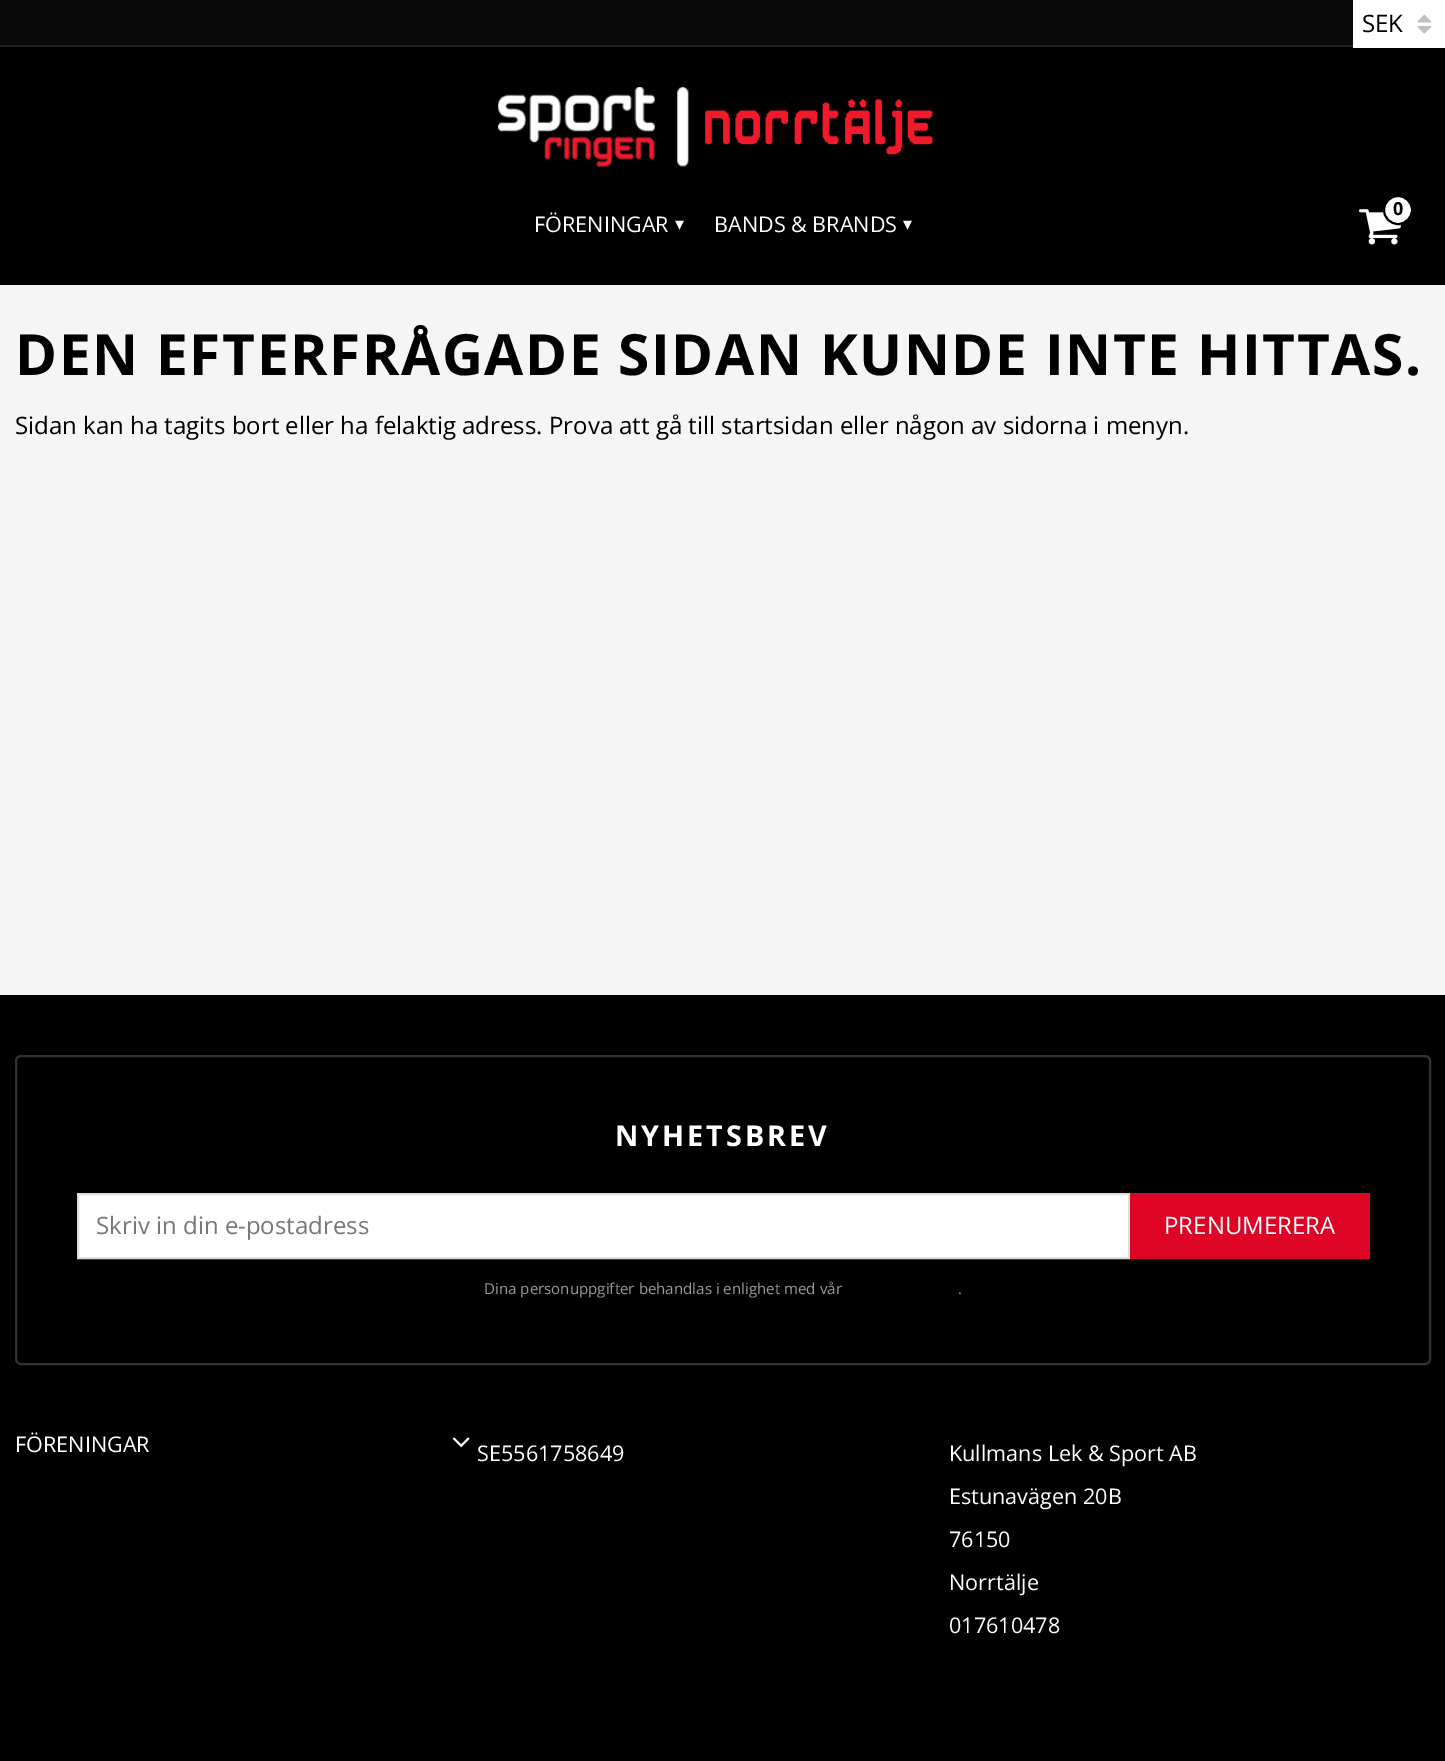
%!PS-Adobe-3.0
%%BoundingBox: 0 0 1445 1761
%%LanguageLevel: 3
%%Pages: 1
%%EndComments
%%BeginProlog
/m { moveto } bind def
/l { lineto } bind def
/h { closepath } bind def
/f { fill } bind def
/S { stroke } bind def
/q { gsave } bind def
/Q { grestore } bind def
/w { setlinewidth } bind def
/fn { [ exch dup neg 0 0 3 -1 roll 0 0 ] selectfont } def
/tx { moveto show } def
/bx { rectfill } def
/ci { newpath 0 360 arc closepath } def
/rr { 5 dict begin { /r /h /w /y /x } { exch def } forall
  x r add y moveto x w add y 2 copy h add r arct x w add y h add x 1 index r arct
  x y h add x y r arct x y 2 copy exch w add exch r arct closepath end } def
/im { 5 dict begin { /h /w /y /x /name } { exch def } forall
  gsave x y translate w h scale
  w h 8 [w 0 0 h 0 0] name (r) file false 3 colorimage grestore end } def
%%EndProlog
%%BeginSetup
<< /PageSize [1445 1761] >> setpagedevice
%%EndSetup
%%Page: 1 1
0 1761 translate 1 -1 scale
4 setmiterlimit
0.961 setgray
0 0 1445 1761 bx
0 setgray
0 47 1445 238 bx
0.039 setgray
0 0 1353 45 bx
0.133 setgray
0 45 1353 2 bx
1 setgray
1353 0 92 48 bx
/OpenSans-Regular 24 fn
0 setgray
(SEK) 1362 32 tx
(image0.raw) 1417 14 15 20 im
(image1.raw) 498 87 435 80 im
(image2.raw) 1359 209 42 36 im
1 setgray
1398 210 14 ci q f Q
0 setgray
2 w
S
/OpenSans-Bold 18 fn
(0) 1393 215 tx
/OpenSans-Regular 21.6 fn
1 setgray
(FÖRENINGAR) 534 232 tx
/DejaVuSans-Regular 18 fn
(▾) 675 230 tx
/OpenSans-Regular 21.6 fn
(BANDS & BRANDS) 714 232 tx
/DejaVuSans-Regular 18 fn
(▾) 903 230 tx
/OpenSans-Bold 56.9 fn
0 setgray
15 375 m 1.5 0 (DEN EFTERFRÅGADE SIDAN KUNDE INTE HITTAS.) ashow
/OpenSans-Regular 24 fn
(Sidan kan ha tagits bort eller ha felaktig adress. Prova att gå till startsidan eller någon av sidorna i menyn.) 15 434 tx
0 995 1445 766 bx
0.2 setgray
16 1056 1414 308 5 rr S
/OpenSans-Bold 28.75 fn
1 setgray
615 1146 m 3 0 (NYHETSBREV) ashow
78 1194 m 1129 1194 l 1129 1258 l 78 1258 l h q f Q
0.867 setgray
S
/OpenSans-Regular 24 fn
0.471 setgray
(Skriv in din e-postadress) 96 1234 tx
0.871 0.016 0.149 setrgbcolor
1130 1193 240 66 bx
1 setgray
(PRENUMERERA) 1164 1234 tx
/OpenSans-Regular 15.1 fn
0.6 setgray
(Dina personuppgifter behandlas i enlighet med vår) 484 1294 tx
(.) 958 1294 tx
/OpenSans-Regular 21.6 fn
1 setgray
(FÖRENINGAR) 15 1452 tx
(image3.raw) 452 1437 18 11 im
(SE5561758649) 477 1461 tx
(Kullmans Lek & Sport AB) 949 1461 tx
(Estunavägen 20B) 949 1504 tx
(76150) 949 1547 tx
(Norrtälje) 949 1590 tx
(017610478) 949 1633 tx
showpage
%%EOF
